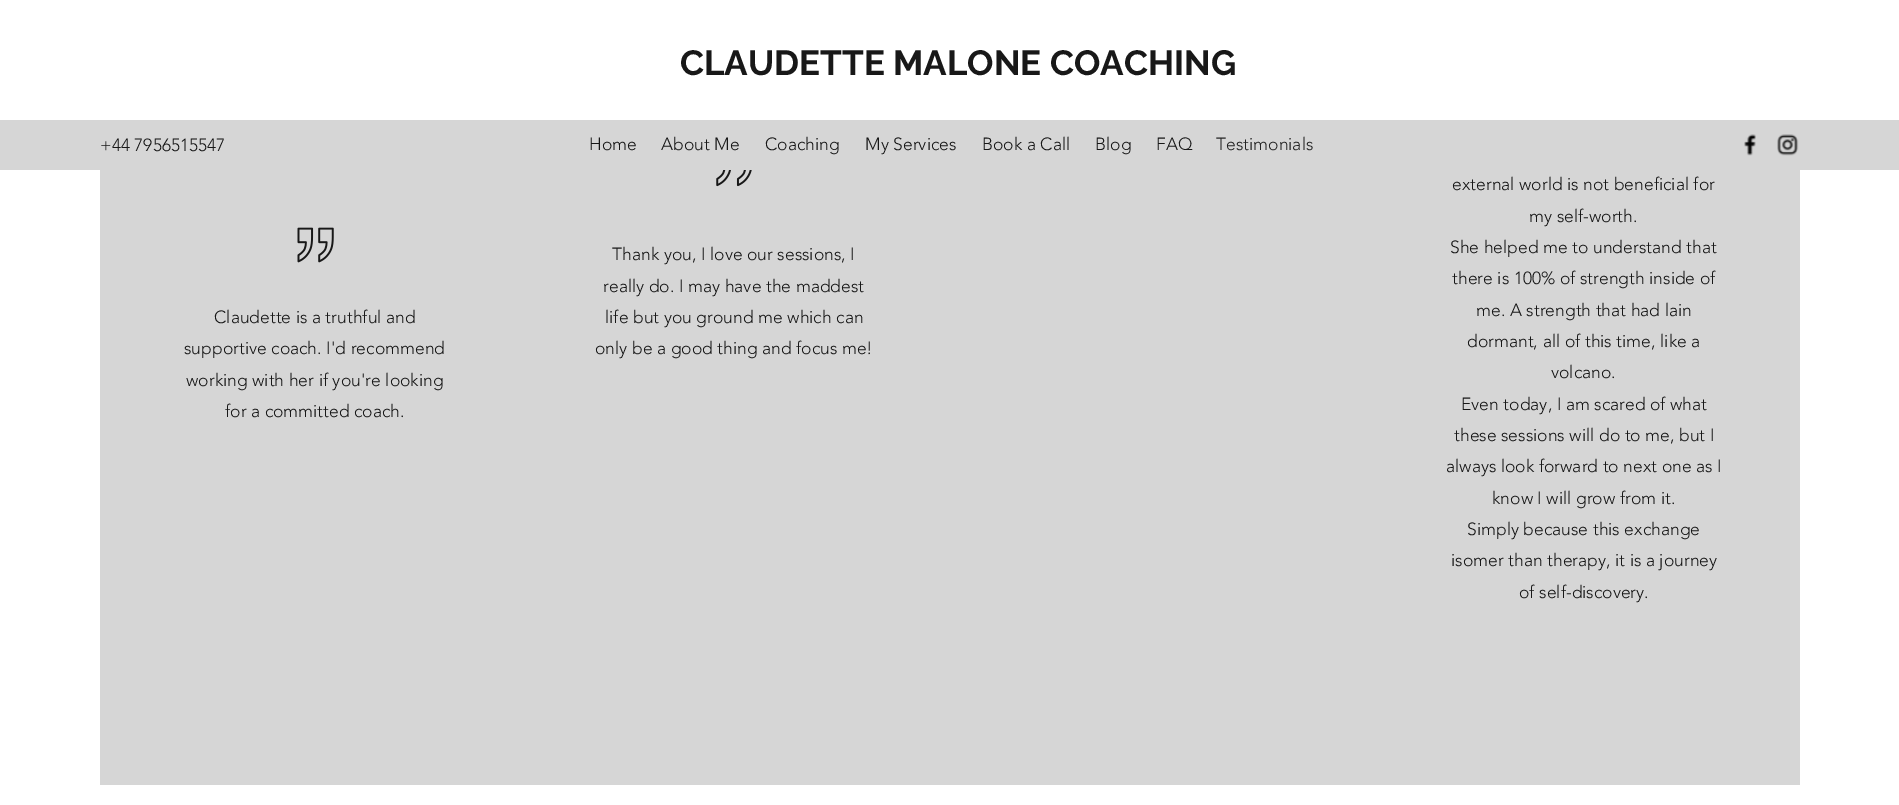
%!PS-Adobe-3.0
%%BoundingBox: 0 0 1899 805
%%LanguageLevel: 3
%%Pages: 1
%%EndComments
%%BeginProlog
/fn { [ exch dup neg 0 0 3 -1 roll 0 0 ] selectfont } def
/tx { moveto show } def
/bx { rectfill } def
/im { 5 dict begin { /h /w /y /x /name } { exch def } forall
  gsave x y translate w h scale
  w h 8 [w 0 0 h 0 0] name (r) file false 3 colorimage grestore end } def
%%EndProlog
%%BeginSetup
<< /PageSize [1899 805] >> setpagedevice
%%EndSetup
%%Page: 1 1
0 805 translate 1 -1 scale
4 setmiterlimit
1 setgray
0 0 1899 805 bx
/Raleway-Bold 35 fn
0.094 setgray
(CLAUDETTE MALONE COACHING) 680 75 tx
0.839 setgray
0 120 1899 50 bx
/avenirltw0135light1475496-Light 17.5 fn
0.094 setgray
(+44 7956515547) 100 151 tx
(Home) 589 150 tx
(About Me) 661 150 tx
(Coaching) 765 150 tx
(My Services) 865 150 tx
(Book a Call) 982 150 tx
(Blog) 1095 150 tx
(FAQ) 1156 150 tx
0.141 setgray
(Testimonials) 1216 150 tx
(image0.raw) 1744 134 12 22 im
(image1.raw) 1777 134 22 22 im
0.839 setgray
100 170 1700 615 bx
(image2.raw) 297 227 37 36 im
0.094 setgray
(Claudette is a truthful and) 214 323 tx
(supportive coach. I'd recommend) 184 354 tx
(working with her if you're looking) 186 386 tx
(for a committed coach.) 225 417 tx
(image3.raw) 716 170 36 17 im
(Thank you, I love our sessions, I) 612 260 tx
(really do. I may have the maddest) 603 292 tx
(life but you ground me which can) 605 323 tx
(only be a good thing and focus me!) 595 354 tx
(external world is not beneficial for) 1452 190 tx
(my self-worth.) 1529 222 tx
(She helped me to understand that) 1450 253 tx
(there is 100% of strength inside of) 1452 284 tx
(me. A strength that had lain) 1476 316 tx
(dormant, all of this time, like a) 1467 347 tx
(volcano.) 1551 378 tx
(Even today, I am scared of what) 1461 410 tx
(these sessions will do to me, but I) 1454 441 tx
(always look forward to next one as I) 1446 472 tx
(know I will grow from it.) 1492 504 tx
(Simply because this exchange) 1467 535 tx
(isomer than therapy, it is a journey) 1451 566 tx
(of self-discovery.) 1519 598 tx
showpage
%%EOF
